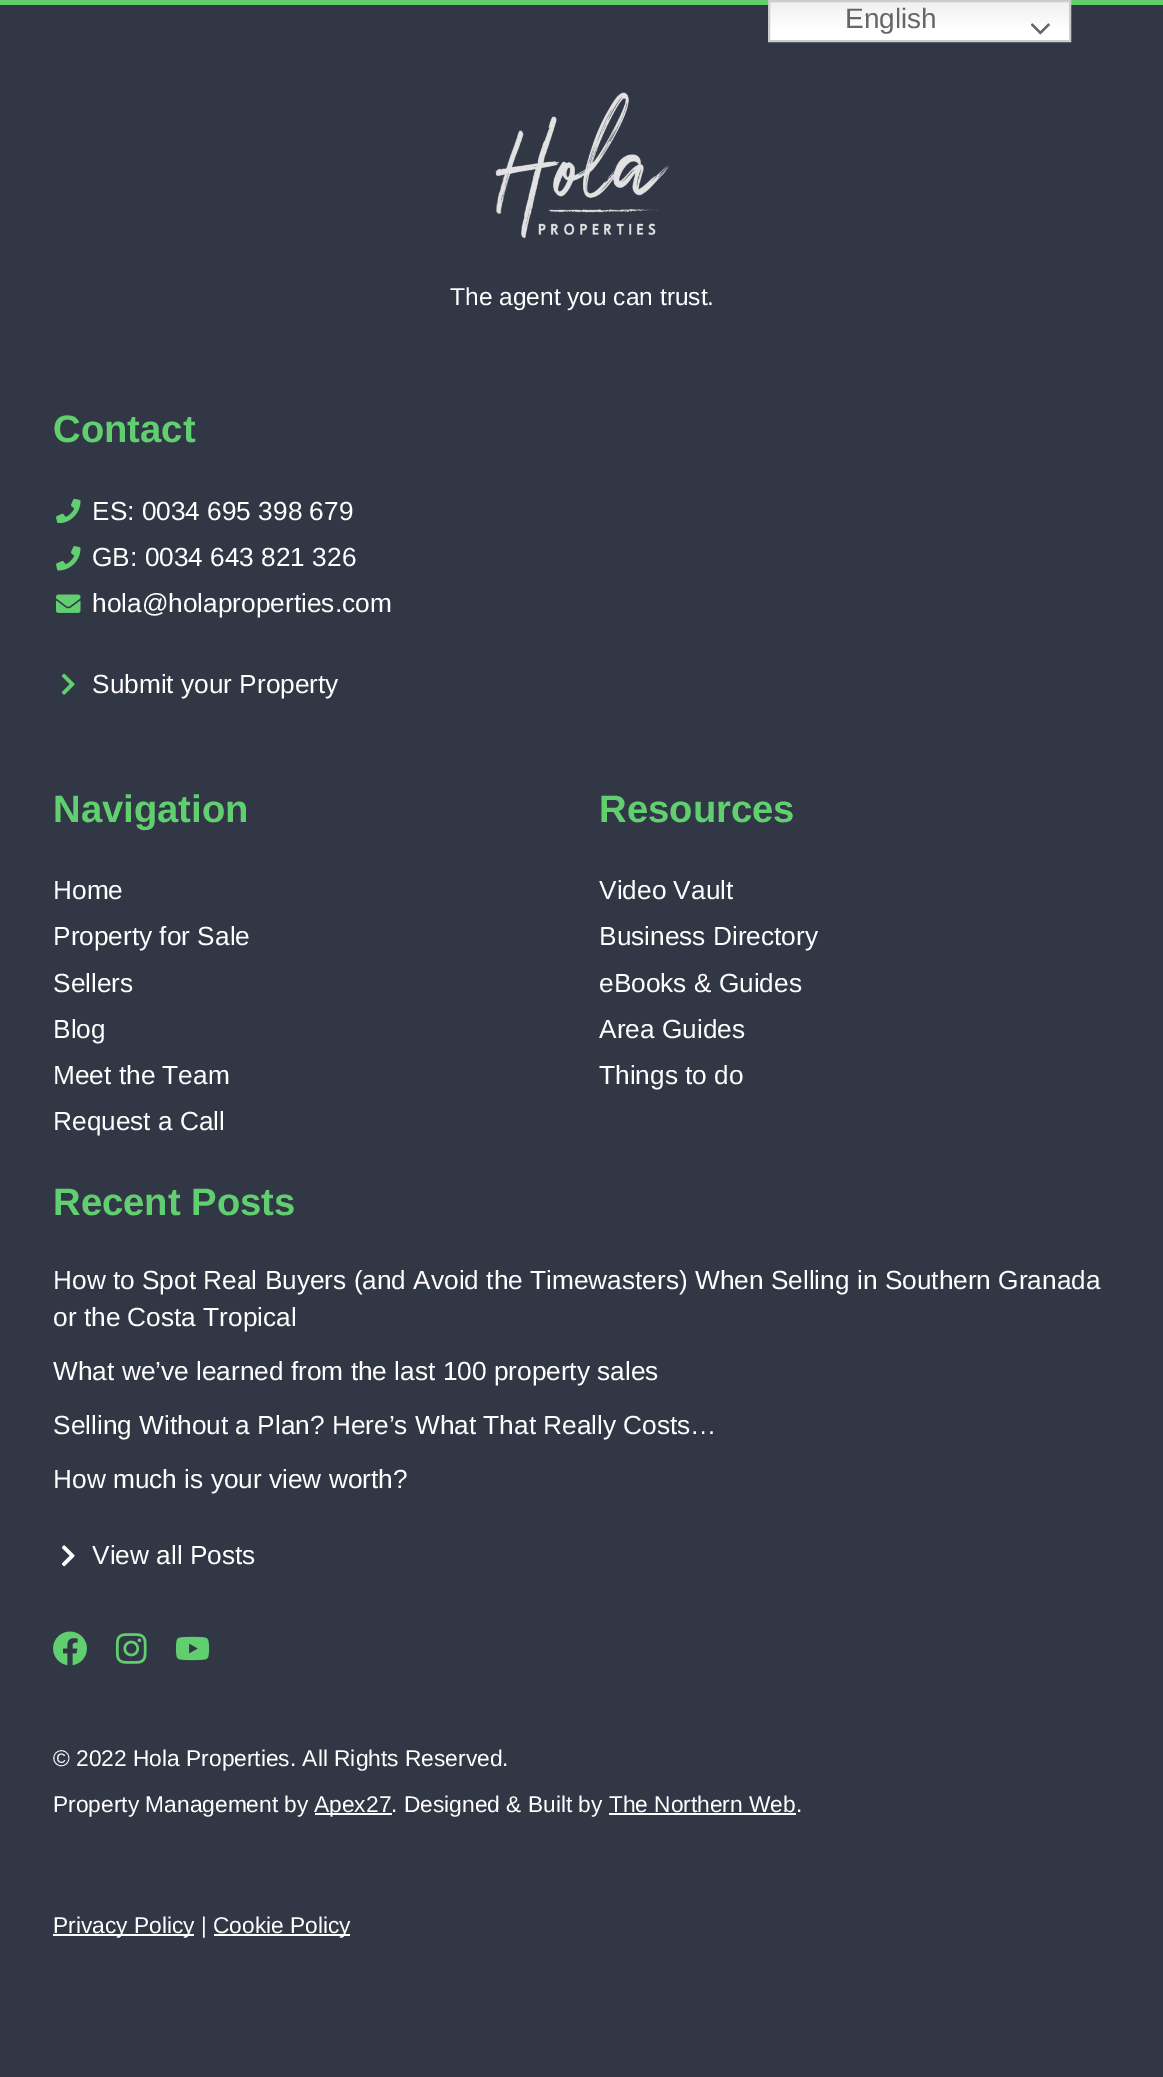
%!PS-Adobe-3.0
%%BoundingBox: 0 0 1163 2077
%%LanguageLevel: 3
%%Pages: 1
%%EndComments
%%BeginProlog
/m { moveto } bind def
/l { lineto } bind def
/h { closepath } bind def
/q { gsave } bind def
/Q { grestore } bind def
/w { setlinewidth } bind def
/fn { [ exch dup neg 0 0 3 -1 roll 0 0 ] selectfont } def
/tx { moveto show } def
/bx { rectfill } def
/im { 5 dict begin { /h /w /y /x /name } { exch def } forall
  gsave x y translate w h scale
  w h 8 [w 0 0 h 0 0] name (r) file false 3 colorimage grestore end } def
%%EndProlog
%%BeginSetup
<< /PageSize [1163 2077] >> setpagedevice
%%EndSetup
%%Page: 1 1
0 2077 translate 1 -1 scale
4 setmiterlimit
0.196 0.216 0.275 setrgbcolor
0 0 1163 2077 bx
0.38 0.808 0.439 setrgbcolor
0 0 1163 5 bx
q 770 2 m 1069 2 l 1069 40 l 770 40 l h clip newpath
<< /ShadingType 2 /ColorSpace /DeviceRGB /Coords [920 0 920 42] /Extend [true true] /Function << /FunctionType 3 /Domain [0 1] /Functions [<< /FunctionType 2 /Domain [0 1] /C0 [0.937 0.937 0.937] /C1 [1 1 1] /N 1 >> << /FunctionType 2 /Domain [0 1] /C0 [1 1 1] /C1 [1 1 1] /N 1 >>] /Bounds [0.7] /Encode [0 1 0 1] >> >> shfill Q
0.8 setgray
2 w
769 1 301 40 rectstroke
/LiberationSans-Regular 28 fn
0.4 setgray
(English) 845 28 tx
(image0.raw) 1031 23 19 12 im
(image1.raw) 495 92 174 146 im
/LiberationSans-Regular 24.5 fn
1 setgray
(The agent you can trust.) 450 305 tx
/LiberationSans-Bold 38.25 fn
0.38 0.808 0.439 setrgbcolor
(Contact) 53 442 tx
(image2.raw) 56 499 25 24 im
/LiberationSans-Regular 26.25 fn
1 setgray
(ES: 0034 695 398 679) 92 520 tx
(image3.raw) 56 546 25 25 im
(GB: 0034 643 821 326) 92 566 tx
(image4.raw) 56 594 25 19 im
(hola@holaproperties.com) 92 612 tx
(image5.raw) 61 673 14 22 im
(Submit your Property) 92 693 tx
/LiberationSans-Bold 38.25 fn
0.38 0.808 0.439 setrgbcolor
(Navigation) 53 822 tx
/LiberationSans-Regular 26.25 fn
1 setgray
(Home) 53 899 tx
(Property for Sale) 53 945 tx
(Sellers) 53 992 tx
(Blog) 53 1038 tx
(Meet the Team) 53 1084 tx
(Request a Call) 53 1130 tx
/LiberationSans-Bold 38.25 fn
0.38 0.808 0.439 setrgbcolor
(Resources) 599 822 tx
/LiberationSans-Regular 26.25 fn
1 setgray
(Video Vault) 599 899 tx
(Business Directory) 599 945 tx
(eBooks & Guides) 599 992 tx
(Area Guides) 599 1038 tx
(Things to do) 599 1084 tx
/LiberationSans-Bold 38.25 fn
0.38 0.808 0.439 setrgbcolor
(Recent Posts) 53 1215 tx
/LiberationSans-Regular 26.25 fn
1 setgray
(How to Spot Real Buyers \(and Avoid the Timewasters\) When Selling in Southern Granada) 53 1289 tx
(or the Costa Tropical) 53 1326 tx
(What we’ve learned from the last 100 property sales) 53 1380 tx
(Selling Without a Plan? Here’s What That Really Costs…) 53 1434 tx
(How much is your view worth?) 53 1488 tx
(image6.raw) 61 1545 14 22 im
(View all Posts) 92 1564 tx
(image7.raw) 53 1631 34 35 im
(image8.raw) 115 1633 32 31 im
(image9.raw) 175 1636 35 25 im
/LiberationSans-Regular 22.75 fn
(© 2022 Hola Properties. All Rights Reserved.) 53 1766 tx
(Property Management by) 53 1812 tx
315 1813 77 2 bx
(Apex27. Designed & Built by The Northern Web.) 314 1812 tx
609 1813 187 2 bx
53 1934 141 2 bx
(Privacy Policy |) 53 1933 tx
214 1934 136 2 bx
(Cookie Policy) 213 1933 tx
showpage
%%EOF
